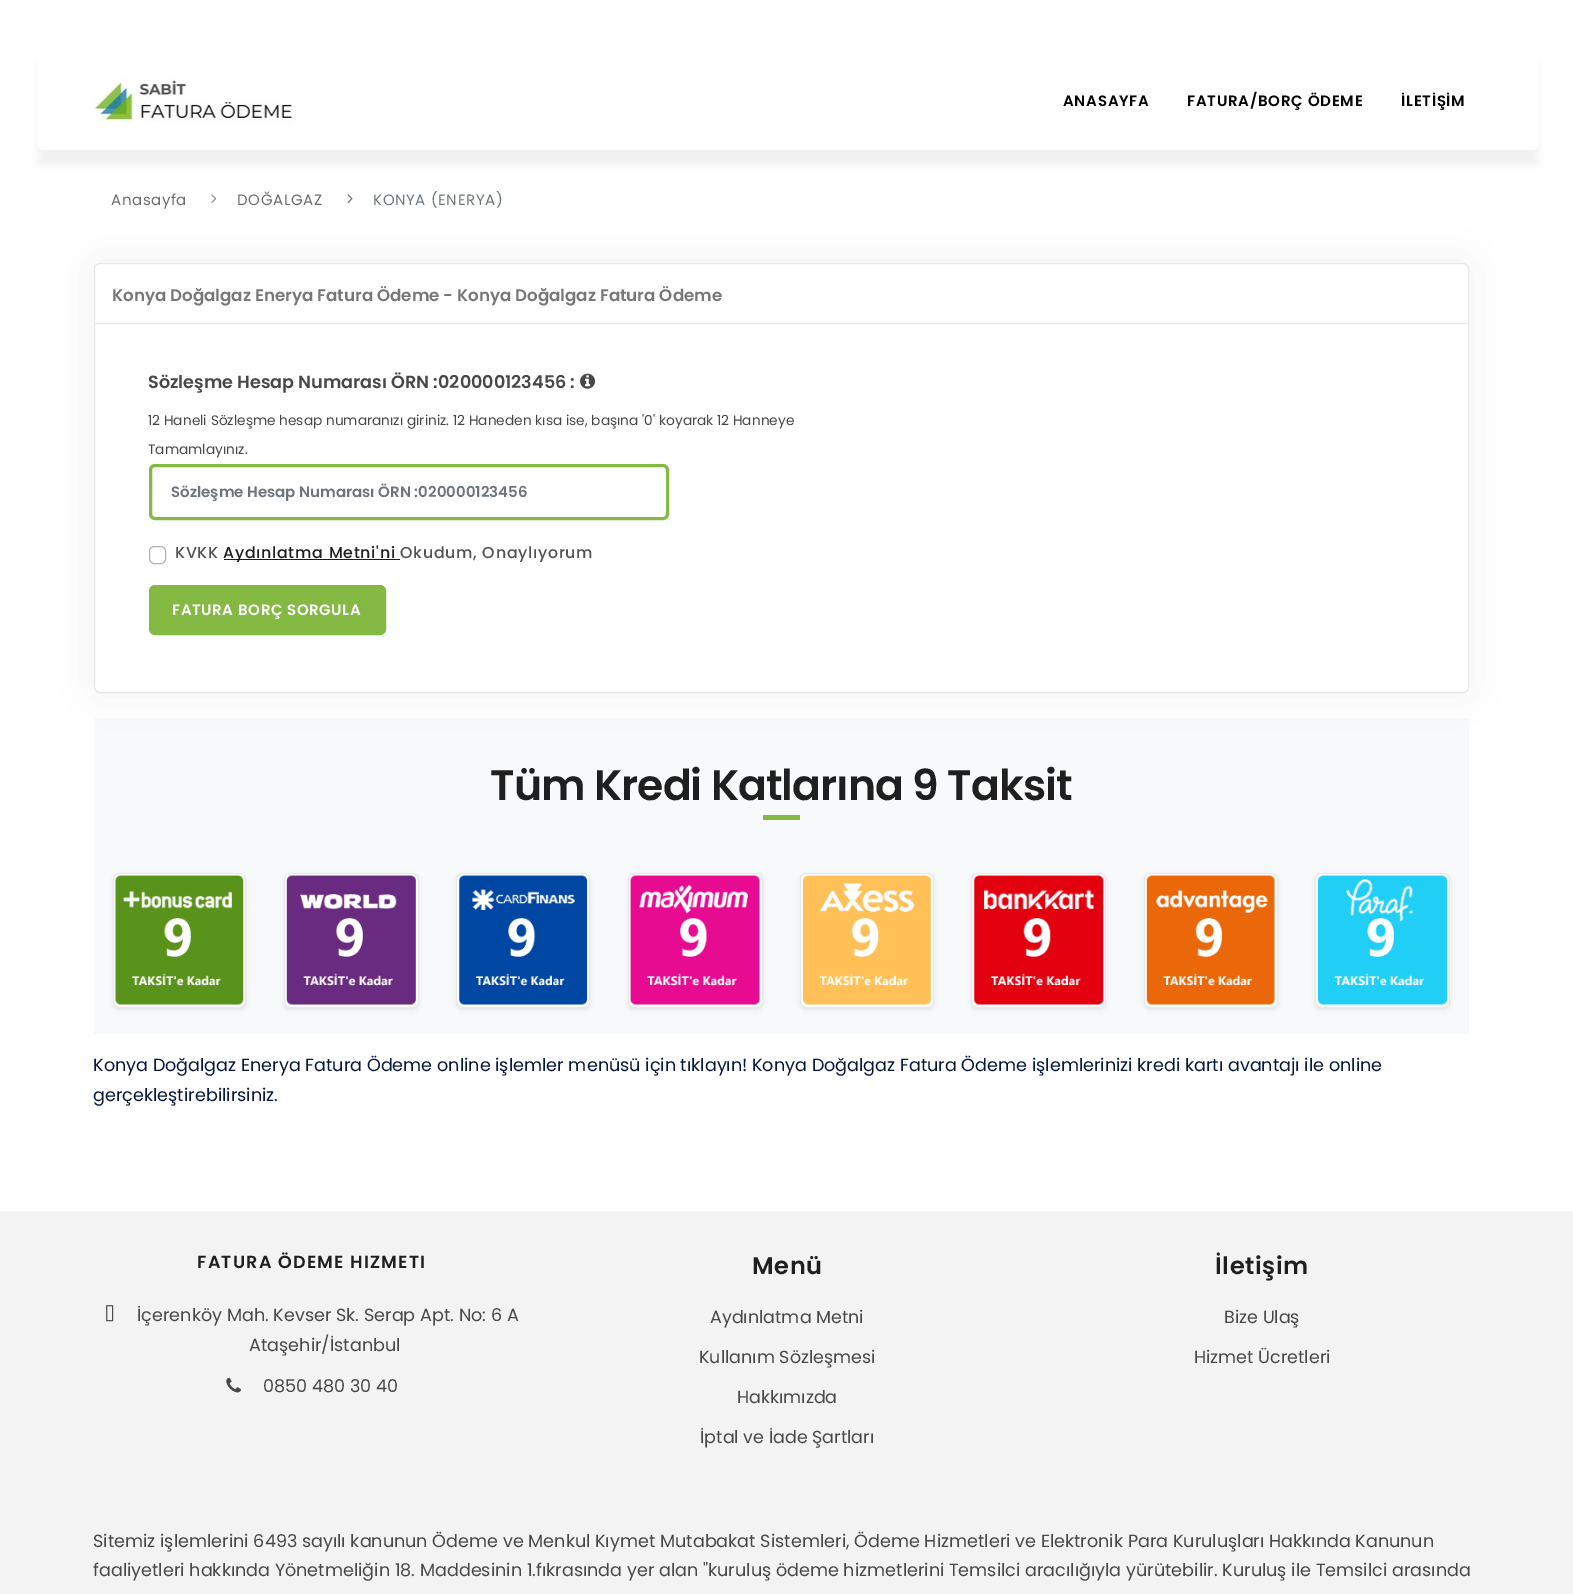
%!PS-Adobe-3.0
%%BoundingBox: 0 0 1573 1594
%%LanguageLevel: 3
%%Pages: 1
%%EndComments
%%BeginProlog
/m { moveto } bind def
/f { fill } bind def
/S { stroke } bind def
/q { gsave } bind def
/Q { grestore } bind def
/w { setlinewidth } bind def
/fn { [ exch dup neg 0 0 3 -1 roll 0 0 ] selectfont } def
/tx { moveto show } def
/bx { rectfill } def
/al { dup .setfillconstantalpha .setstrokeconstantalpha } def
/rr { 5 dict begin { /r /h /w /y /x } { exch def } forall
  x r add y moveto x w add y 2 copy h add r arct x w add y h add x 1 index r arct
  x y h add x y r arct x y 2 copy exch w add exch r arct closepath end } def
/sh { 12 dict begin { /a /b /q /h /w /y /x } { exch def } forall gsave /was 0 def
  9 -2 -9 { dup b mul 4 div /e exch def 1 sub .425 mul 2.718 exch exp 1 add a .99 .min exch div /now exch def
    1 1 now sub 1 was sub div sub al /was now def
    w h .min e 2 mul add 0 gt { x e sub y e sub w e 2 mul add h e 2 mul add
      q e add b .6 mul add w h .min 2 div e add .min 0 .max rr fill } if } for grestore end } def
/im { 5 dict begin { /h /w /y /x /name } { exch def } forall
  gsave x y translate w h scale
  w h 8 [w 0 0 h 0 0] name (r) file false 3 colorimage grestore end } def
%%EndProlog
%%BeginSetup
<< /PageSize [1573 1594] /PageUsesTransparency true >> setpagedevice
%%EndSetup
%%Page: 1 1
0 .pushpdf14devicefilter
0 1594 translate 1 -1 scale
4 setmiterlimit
1 setgray
0 0 1573 1594 bx
0 setgray
38 65 1500 100 0 4 0.06 sh
1 setgray
38 50 1500 100 5 rr f
(image0.raw) 93 77 200 47 im
/Poppins-SemiBold 15 fn
0 setgray
1063 106 m 0.75 0 (ANASAYFA) ashow
1187 106 m 0.75 0 (FATURA/BORÇ ÖDEME) ashow
1401 106 m 0.75 0 (İLETİŞİM) ashow
/Poppins-Regular 15 fn
0.427 setgray
111 205 m 0.6 0 (Anasayfa) ashow
(image1.raw) 211 194 6 9 im
237 205 m 0.6 0 (DOĞALGAZ) ashow
(image2.raw) 347 194 6 10 im
0.424 0.459 0.49 setrgbcolor
373 205 m 0.6 0 (KONYA \(ENERYA\)) ashow
0.973 0.976 0.98 setrgbcolor
94 718 1375 316 bx
0.604 0.631 0.671 setrgbcolor
94 263 1375 430 6 22 0.15 sh
1 setgray
94.5 263.5 1374 429 5.5 rr q f Q
0.902 0.91 0.922 setrgbcolor
S
/Poppins-SemiBold 16.7 fn
0.467 setgray
(Konya Doğalgaz Enerya Fatura Ödeme - Konya Doğalgaz Fatura Ödeme) 112 301 tx
0.902 setgray
95 323 1373 1 bx
/Poppins-SemiBold 17.6 fn
0.282 setgray
(Sözleşme Hesap Numarası ÖRN :020000123456 :) 148 388 tx
(image3.raw) 580 373 16 16 im
/Poppins-Regular 13.75 fn
(12 Haneli Sözleşme hesap numaranızı giriniz. 12 Haneden kısa ise, başına '0' koyarak 12 Hanneye) 148 425 tx
(Tamamlayınız.) 148 454 tx
0.518 0.725 0.263 setrgbcolor
3 w
150.5 465.5 517 53 4.5 rr S
/Poppins-SemiBold 15 fn
0.424 0.459 0.49 setrgbcolor
(Sözleşme Hesap Numarası ÖRN :020000123456) 171 497 tx
0.678 0.71 0.741 setrgbcolor
1 w
149.5 546.5 16 17 4.5 rr S
/Poppins-Medium 15.8 fn
0.322 setgray
175 558 m 0.75 0 (KVKK) ashow
0.102 0.106 0.118 setrgbcolor
224 559 176 1 bx
0.122 setgray
223 558 m 0.75 0 (Aydınlatma Metni'ni) ashow
0.322 setgray
400 558 m 0.75 0 (Okudum, Onaylıyorum) ashow
0.518 0.725 0.263 setrgbcolor
149.5 585.5 236 49 5.5 rr q f Q
S
/Poppins-SemiBold 15 fn
1 setgray
172 615 m 0.6 0 (FATURA BORÇ SORGULA) ashow
/Poppins-SemiBold 42.5 fn
0.122 setgray
490 800 m -0.9 0 (Tüm Kredi Katlarına 9 Taksit) ashow
0.518 0.725 0.263 setrgbcolor
763 815 37 5 bx
0 setgray
113 875 133 135 6 2 0.07 sh
1 setgray
113.5 873.5 132 134 5.5 rr q f Q
0.902 0.91 0.922 setrgbcolor
S
(image4.raw) 115 875 129 130 im
0 setgray
284 875 135 135 6 2 0.07 sh
1 setgray
284.5 873.5 134 134 5.5 rr q f Q
0.902 0.91 0.922 setrgbcolor
S
(image5.raw) 286 875 130 130 im
0 setgray
456 875 134 135 6 2 0.07 sh
1 setgray
456.5 873.5 133 134 5.5 rr q f Q
0.902 0.91 0.922 setrgbcolor
S
(image6.raw) 459 875 128 130 im
0 setgray
628 875 135 135 6 2 0.07 sh
1 setgray
628.5 873.5 134 134 5.5 rr q f Q
0.902 0.91 0.922 setrgbcolor
S
(image7.raw) 630 875 130 130 im
0 setgray
800 875 134 135 6 2 0.07 sh
1 setgray
800.5 873.5 133 134 5.5 rr q f Q
0.902 0.91 0.922 setrgbcolor
S
(image8.raw) 803 875 128 130 im
0 setgray
971 875 135 135 6 2 0.07 sh
1 setgray
971.5 873.5 134 134 5.5 rr q f Q
0.902 0.91 0.922 setrgbcolor
S
(image9.raw) 974 875 130 130 im
0 setgray
1144 875 134 135 6 2 0.07 sh
1 setgray
1144.5 873.5 133 134 5.5 rr q f Q
0.902 0.91 0.922 setrgbcolor
S
(image10.raw) 1146 875 129 130 im
0 setgray
1315 875 135 135 6 2 0.07 sh
1 setgray
1315.5 873.5 134 134 5.5 rr q f Q
0.902 0.91 0.922 setrgbcolor
S
(image11.raw) 1318 875 129 130 im
/Poppins-Regular 17.6 fn
0.027 0.094 0.239 setrgbcolor
(Konya Doğalgaz Enerya Fatura Ödeme online işlemler menüsü için tıklayın! Konya Doğalgaz Fatura Ödeme işlemlerinizi kredi kartı avantajı ile online) 93 1071 tx
(gerçekleştirebilirsiniz.) 93 1101 tx
0.953 setgray
0 1211 1573 383 bx
/Poppins-SemiBold 17.5 fn
0.122 setgray
197 1268 m 1.25 0 (FATURA ÖDEME HIZMETI) ashow
(image12.raw) 106 1305 8 17 im
/Poppins-Regular 17.6 fn
0.282 setgray
(İçerenköy Mah. Kevser Sk. Serap Apt. No: 6 A) 137 1321 tx
(Ataşehir/İstanbul) 249 1351 tx
(image13.raw) 226 1377 15 16 im
(0850 480 30 40) 263 1392 tx
/Poppins-SemiBold 24 fn
0.122 setgray
752 1274 m 0.6 0 (Menü) ashow
/Poppins-Regular 17.5 fn
0.282 setgray
(Aydınlatma Metni) 710 1323 tx
(Kullanım Sözleşmesi) 699 1363 tx
(Hakkımızda) 737 1403 tx
(İptal ve İade Şartları) 700 1443 tx
/Poppins-SemiBold 24 fn
0.122 setgray
1215 1274 m 0.6 0 (İletişim) ashow
/Poppins-Regular 17.5 fn
0.282 setgray
(Bize Ulaş) 1224 1323 tx
(Hizmet Ücretleri) 1194 1363 tx
/Poppins-Regular 17.6 fn
(Sitemiz işlemlerini 6493 sayılı kanunun Ödeme ve Menkul Kıymet Mutabakat Sistemleri, Ödeme Hizmetleri ve Elektronik Para Kuruluşları Hakkında Kanunun) 93 1547 tx
(faaliyetleri hakkında Yönetmeliğin 18. Maddesinin 1.fıkrasında yer alan "kuruluş ödeme hizmetlerini Temsilci aracılığıyla yürütebilir. Kuruluş ile Temsilci arasında) 93 1576 tx
.poppdf14devicefilter showpage
%%EOF
